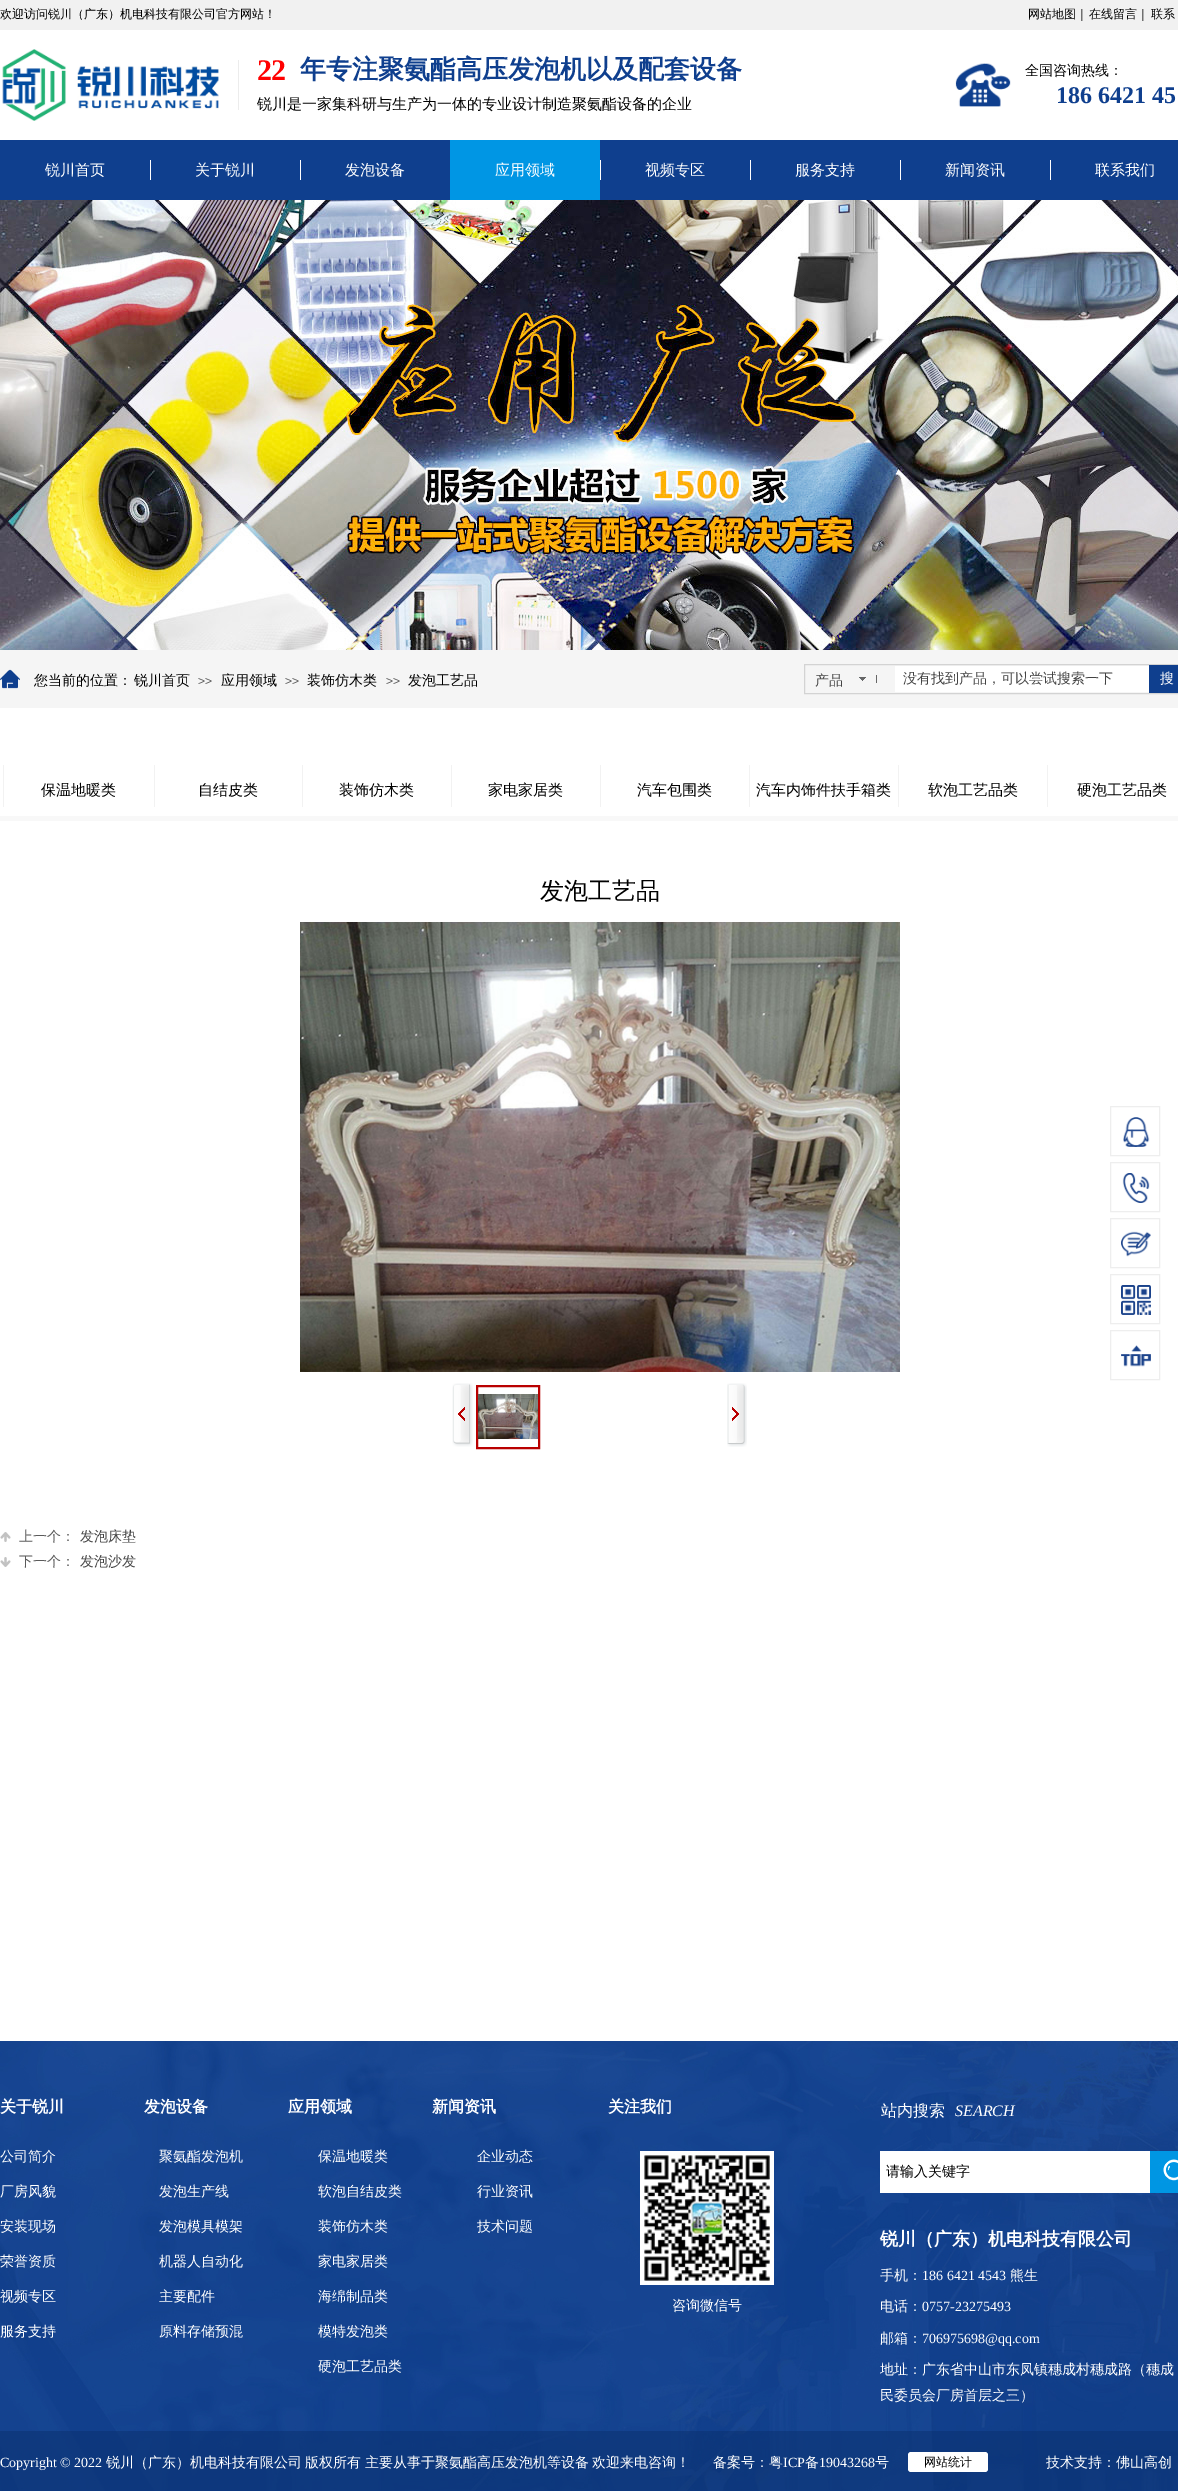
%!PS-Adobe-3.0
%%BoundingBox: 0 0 1178 2491
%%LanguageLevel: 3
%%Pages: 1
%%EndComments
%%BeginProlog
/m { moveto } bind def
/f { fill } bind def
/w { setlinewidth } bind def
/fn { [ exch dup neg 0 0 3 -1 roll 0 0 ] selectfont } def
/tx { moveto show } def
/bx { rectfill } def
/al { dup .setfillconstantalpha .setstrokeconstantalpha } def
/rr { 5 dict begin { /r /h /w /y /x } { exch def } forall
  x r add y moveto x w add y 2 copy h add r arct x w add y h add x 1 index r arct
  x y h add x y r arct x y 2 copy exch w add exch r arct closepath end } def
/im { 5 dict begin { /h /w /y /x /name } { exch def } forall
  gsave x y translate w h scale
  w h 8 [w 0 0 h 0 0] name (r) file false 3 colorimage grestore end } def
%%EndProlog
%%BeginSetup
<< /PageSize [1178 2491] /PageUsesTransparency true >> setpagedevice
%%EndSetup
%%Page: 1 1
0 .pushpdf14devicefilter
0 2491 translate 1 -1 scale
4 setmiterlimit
1 setgray
0 0 1178 2491 bx
0.945 setgray
0 0 1178 30 bx
/WenQuanYiZenHei-Medium 12 fn
0 setgray
(欢迎访问锐川（广东）机电科技有限公司官方网站！) 0 18 tx
(网站地图｜) 1028 18 tx
(联系) 1151 18 tx
(在线留言｜) 1089 18 tx
(image0.raw) 2 49 217 72 im
0.925 setgray
238 60 1 50 bx
/LiberationSerif-Bold 30 fn
1 0 0 setrgbcolor
257 80 m -1 0 (22) ashow
/WenQuanYiZenHei-Bold 26 fn
0.059 0.247 0.557 setrgbcolor
(年专注聚氨酯高压发泡机以及配套设备) 300 78 tx
(image1.raw) 955 63 56 44 im
/WenQuanYiZenHei-Medium 14 fn
0 setgray
(全国咨询热线：) 1025 75 tx
/WenQuanYiZenHei-Medium 15 fn
(锐川是一家集科研与生产为一体的专业设计制造聚氨酯设备的企业) 257 109 tx
/LiberationSerif-Bold 24 fn
0.059 0.247 0.557 setrgbcolor
(186 6421 45) 1056 103 tx
0 140 1178 60 bx
1 setgray
150 160 1 20 bx
300 160 1 20 bx
600 160 1 20 bx
750 160 1 20 bx
900 160 1 20 bx
1050 160 1 20 bx
/WenQuanYiZenHei-Medium 15 fn
(锐川首页) 45 175 tx
(关于锐川) 195 175 tx
(发泡设备) 345 175 tx
0 0.588 0.894 setrgbcolor
450 140 150 60 bx
1 setgray
(应用领域) 495 175 tx
(视频专区) 645 175 tx
(服务支持) 795 175 tx
(新闻资讯) 945 175 tx
(联系我们) 1095 175 tx
(image2.raw) 0 200 1178 450 im
0.961 setgray
0 650 1178 58 bx
(image3.raw) 0 669 20 20 im
/WenQuanYiZenHei-Medium 14 fn
0 setgray
(您当前的位置：) 34 685 tx
(锐川首页) 134 685 tx
/LiberationSans-Regular 12 fn
0.353 setgray
(>>) 198 685 tx
/WenQuanYiZenHei-Medium 14 fn
0 setgray
(应用领域) 221 685 tx
/LiberationSans-Regular 12 fn
0.353 setgray
(>>) 285 685 tx
/WenQuanYiZenHei-Medium 14 fn
0 setgray
(装饰仿木类) 307 685 tx
/LiberationSans-Regular 12 fn
0.353 setgray
(>>) 386 685 tx
/WenQuanYiZenHei-Medium 14 fn
0 setgray
(发泡工艺品) 408 685 tx
0.827 setgray
804.5 664.5 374 29 rectstroke
(image4.raw) 859 675 18 8 im
0.263 setgray
(产品) 815 685 tx
1 setgray
895 666 254 26 bx
0.263 setgray
(没有找到产品，可以尝试搜索一下) 903 683 tx
0.059 0.247 0.557 setrgbcolor
1149 665 29 28 bx
1 setgray
(搜) 1160 683 tx
0.949 setgray
154 765 1 42 bx
302 765 1 42 bx
451 765 1 42 bx
600 765 1 42 bx
749 765 1 42 bx
898 765 1 42 bx
1047 765 1 42 bx
3 765 1 42 bx
/WenQuanYiZenHei-Medium 15 fn
0 setgray
(保温地暖类) 41 795 tx
(自结皮类) 198 795 tx
(装饰仿木类) 339 795 tx
(家电家居类) 488 795 tx
(汽车包围类) 637 795 tx
(汽车内饰件扶手箱类) 756 795 tx
(软泡工艺品类) 928 795 tx
(硬泡工艺品类) 1077 795 tx
0.973 setgray
0 816 1178 5 bx
/WenQuanYiZenHei-Medium 24 fn
0 setgray
(发泡工艺品) 540 899 tx
(image5.raw) 300 922 600 450 im
(image6.raw) 452 1383 21 64 im
0.725 0 0 setrgbcolor
2 w
477 1386 62 62 rectstroke
(image7.raw) 478 1394 60 45 im
(image8.raw) 727 1383 20 64 im
0.761 setgray
0 1532 11 10 bx
(image9.raw) 0 1532 11 10 im
/WenQuanYiZenHei-Medium 14 fn
0.353 setgray
(上一个：) 19 1541 tx
0.263 setgray
(发泡床垫) 80 1541 tx
0.761 setgray
0 1557 11 10 bx
(image10.raw) 0 1557 11 10 im
0.353 setgray
(下一个：) 19 1566 tx
0.263 setgray
(发泡沙发) 80 1566 tx
(image11.raw) 0 2041 1178 450 im
/WenQuanYiZenHei-Bold 16 fn
1 setgray
(关于锐川) 0 2112 tx
(发泡设备) 144 2112 tx
(应用领域) 288 2112 tx
(新闻资讯) 432 2112 tx
(关注我们) 608 2112 tx
/WenQuanYiZenHei-Medium 16 fn
(站内搜索) 881 2116 tx
/LiberationSerif-Italic 16 fn
(SEARCH) 955 2116 tx
/WenQuanYiZenHei-Medium 14 fn
(公司简介) 0 2161 tx
(厂房风貌) 0 2196 tx
(安装现场) 0 2231 tx
(荣誉资质) 0 2266 tx
(视频专区) 0 2301 tx
(服务支持) 0 2336 tx
(聚氨酯发泡机) 159 2161 tx
(发泡生产线) 159 2196 tx
(发泡模具模架) 159 2231 tx
(机器人自动化) 159 2266 tx
(主要配件) 159 2301 tx
(原料存储预混) 159 2336 tx
(保温地暖类) 318 2161 tx
(软泡自结皮类) 318 2196 tx
(装饰仿木类) 318 2231 tx
(家电家居类) 318 2266 tx
(海绵制品类) 318 2301 tx
(模特发泡类) 318 2336 tx
(硬泡工艺品类) 318 2371 tx
(企业动态) 477 2161 tx
(行业资讯) 477 2196 tx
(技术问题) 477 2231 tx
640 2151 134 1 bx
773 2151 1 134 bx
640 2283 134 2 bx
640 2151 2 134 bx
(image12.raw) 642 2152 131 131 im
880 2151 270 42 bx
0 setgray
(请输入关键字) 886 2176 tx
(image13.raw) 1150 2151 28 42 im
1 setgray
(咨询微信号) 672 2310 tx
/WenQuanYiZenHei-Bold 18 fn
(锐川（广东）机电科技有限公司) 880 2245 tx
/WenQuanYiZenHei-Medium 14 fn
(手机：) 880 2280 tx
/LiberationSerif-Regular 14 fn
(186 6421 4543) 922 2280 tx
/WenQuanYiZenHei-Medium 14 fn
(熊生) 1010 2280 tx
(电话：) 880 2311 tx
/LiberationSerif-Regular 14 fn
(0757-23275493) 922 2311 tx
/WenQuanYiZenHei-Medium 14 fn
(邮箱：) 880 2343 tx
/LiberationSerif-Regular 14 fn
(706975698@qq.com) 922 2343 tx
/WenQuanYiZenHei-Medium 14 fn
(地址：广东省中山市东凤镇穗成村穗成路（穗成) 880 2374 tx
(民委员会厂房首层之三）) 880 2400 tx
0.5 al
0.039 0.188 0.431 setrgbcolor
0 2431 1178 60 bx
/LiberationSerif-Regular 14 fn
1 al
1 setgray
(Copyright © 2022) 0 2467 tx
/WenQuanYiZenHei-Medium 14 fn
(锐川（广东）机电科技有限公司) 106 2467 tx
(版权所有) 305 2467 tx
(主要从事于聚氨酯高压发泡机等设备) 365 2467 tx
(欢迎来电咨询！) 592 2467 tx
(备案号：粤) 713 2467 tx
/LiberationSerif-Regular 14 fn
(ICP) 783 2467 tx
/WenQuanYiZenHei-Medium 14 fn
(备) 805 2467 tx
/LiberationSerif-Regular 14 fn
(19043268) 819 2467 tx
/WenQuanYiZenHei-Medium 14 fn
(号) 875 2467 tx
908 2452 80 20 3 rr f
/WenQuanYiZenHei-Medium 12 fn
0 setgray
(网站统计) 924 2466 tx
/WenQuanYiZenHei-Medium 14 fn
1 setgray
(技术支持：佛山高创) 1046 2467 tx
0.933 setgray
1 w
1110.5 1106.5 49 49 rectstroke
(image14.raw) 1123 1117 27 30 im
1110.5 1162.5 49 49 rectstroke
(image15.raw) 1122 1173 28 30 im
1110.5 1218.5 49 49 rectstroke
(image16.raw) 1121 1231 30 26 im
1110.5 1274.5 49 49 rectstroke
(image17.raw) 1121 1285 30 30 im
1110.5 1330.5 49 49 rectstroke
(image18.raw) 1121 1345 30 22 im
.poppdf14devicefilter showpage
%%EOF
